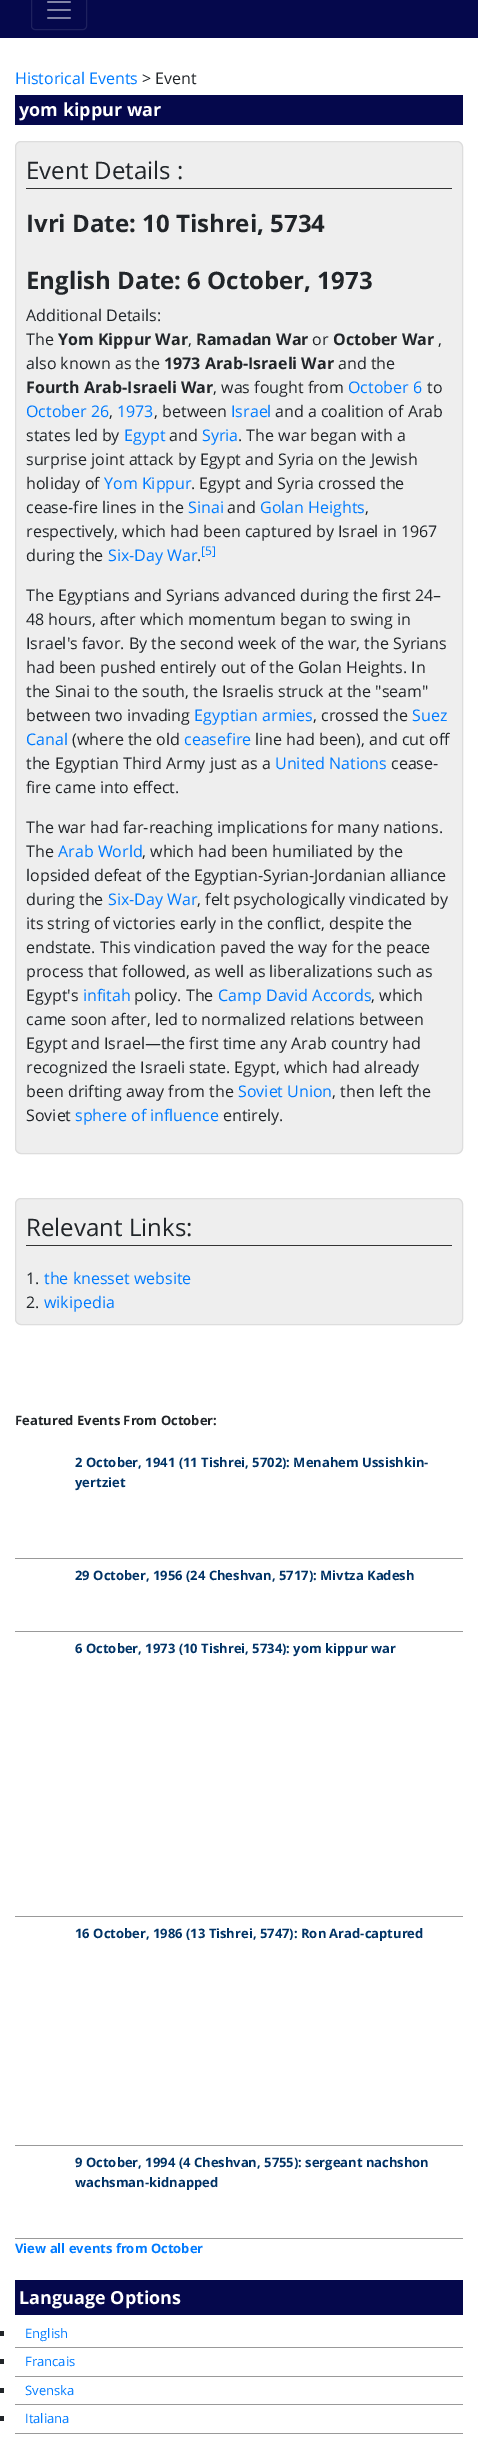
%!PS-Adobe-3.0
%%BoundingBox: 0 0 478 2440
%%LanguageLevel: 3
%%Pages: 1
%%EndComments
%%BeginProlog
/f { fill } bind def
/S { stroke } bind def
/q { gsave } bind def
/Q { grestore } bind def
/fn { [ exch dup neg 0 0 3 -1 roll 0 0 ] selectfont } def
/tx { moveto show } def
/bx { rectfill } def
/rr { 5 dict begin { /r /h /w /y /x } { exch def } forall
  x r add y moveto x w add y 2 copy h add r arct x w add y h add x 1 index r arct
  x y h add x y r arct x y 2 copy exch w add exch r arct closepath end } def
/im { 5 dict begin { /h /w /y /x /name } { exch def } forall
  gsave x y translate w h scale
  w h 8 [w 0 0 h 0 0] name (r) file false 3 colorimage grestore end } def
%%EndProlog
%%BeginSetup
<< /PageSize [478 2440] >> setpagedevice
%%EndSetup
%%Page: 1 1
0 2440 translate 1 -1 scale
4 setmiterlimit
1 setgray
0 0 478 2440 bx
0.02 0.031 0.298 setrgbcolor
0 0 478 38 bx
0.118 0.129 0.369 setrgbcolor
31.5 -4.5 55 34 3.5 rr S
(image0.raw) 47 1 24 18 im
/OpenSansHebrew-Regular 16 fn
0 0.482 1 setrgbcolor
(Historical Events) 15 84 tx
0.129 0.145 0.161 setrgbcolor
(> Event) 142 84 tx
0.02 0.031 0.298 setrgbcolor
15 95 448 30 bx
/OpenSansHebrew-Bold 18 fn
1 setgray
(yom kippur war) 19 116 tx
0.933 setgray
15.5 141.5 447 1012 5.5 rr q f Q
0.867 setgray
S
0.2 setgray
26 188 426 1 bx
/OpenSansHebrew-Regular 24 fn
0.129 0.145 0.161 setrgbcolor
(Event Details :) 26 179 tx
/OpenSansHebrew-Bold 24 fn
(Ivri Date: 10 Tishrei, 5734) 26 232 tx
(English Date: 6 October, 1973) 26 289 tx
/OpenSansHebrew-Regular 16 fn
(Additional Details:) 26 321 tx
(The) 26 345 tx
/OpenSansHebrew-Bold 16 fn
(Yom Kippur War) 58 345 tx
/OpenSansHebrew-Regular 16 fn
(,) 188 345 tx
/OpenSansHebrew-Bold 16 fn
(Ramadan War) 196 345 tx
/OpenSansHebrew-Regular 16 fn
(or) 312 345 tx
/OpenSansHebrew-Bold 16 fn
(October War) 333 345 tx
/OpenSansHebrew-Regular 16 fn
(,) 438 345 tx
(also known as the) 26 369 tx
/OpenSansHebrew-Bold 16 fn
(1973 Arab-Israeli War) 164 369 tx
/OpenSansHebrew-Regular 16 fn
(and the) 338 369 tx
/OpenSansHebrew-Bold 16 fn
(Fourth Arab-Israeli War) 26 393 tx
/OpenSansHebrew-Regular 16 fn
(, was fought from) 213 393 tx
0 0.482 1 setrgbcolor
(October 6) 348 393 tx
0.129 0.145 0.161 setrgbcolor
(to) 427 393 tx
0 0.482 1 setrgbcolor
(October 26) 26 417 tx
0.129 0.145 0.161 setrgbcolor
(,) 109 417 tx
0 0.482 1 setrgbcolor
(1973) 117 417 tx
0.129 0.145 0.161 setrgbcolor
(, between) 154 417 tx
0 0.482 1 setrgbcolor
(Israel) 231 417 tx
0.129 0.145 0.161 setrgbcolor
(and a coalition of Arab) 275 417 tx
(states led by) 26 441 tx
0 0.482 1 setrgbcolor
(Egypt) 124 441 tx
0.129 0.145 0.161 setrgbcolor
(and) 169 441 tx
0 0.482 1 setrgbcolor
(Syria) 202 441 tx
0.129 0.145 0.161 setrgbcolor
(. The war began with a) 238 441 tx
(surprise joint attack by Egypt and Syria on the Jewish) 26 465 tx
(holiday of) 26 489 tx
0 0.482 1 setrgbcolor
(Yom Kippur) 104 489 tx
0.129 0.145 0.161 setrgbcolor
(. Egypt and Syria crossed the) 191 489 tx
(cease-fire lines in the) 26 513 tx
0 0.482 1 setrgbcolor
(Sinai) 188 513 tx
0.129 0.145 0.161 setrgbcolor
(and) 227 513 tx
0 0.482 1 setrgbcolor
(Golan Heights) 260 513 tx
0.129 0.145 0.161 setrgbcolor
(,) 365 513 tx
(respectively, which had been captured by Israel in 1967) 26 537 tx
(during the) 26 561 tx
0 0.482 1 setrgbcolor
(Six-Day War) 108 561 tx
0.129 0.145 0.161 setrgbcolor
(.) 197 561 tx
/OpenSansHebrew-Regular 12 fn
0 0.482 1 setrgbcolor
([5]) 201 555 tx
/OpenSansHebrew-Regular 16 fn
0.129 0.145 0.161 setrgbcolor
(The Egyptians and Syrians advanced during the first 24–) 26 601 tx
(48 hours, after which momentum began to swing in) 26 625 tx
(Israel's favor. By the second week of the war, the Syrians) 26 649 tx
(had been pushed entirely out of the Golan Heights. In) 26 673 tx
(the Sinai to the south, the Israelis struck at the "seam") 26 697 tx
(between two invading) 26 721 tx
0 0.482 1 setrgbcolor
(Egyptian armies) 194 721 tx
0.129 0.145 0.161 setrgbcolor
(, crossed the) 313 721 tx
0 0.482 1 setrgbcolor
(Suez) 412 721 tx
(Canal) 26 745 tx
0.129 0.145 0.161 setrgbcolor
(\(where the old) 72 745 tx
0 0.482 1 setrgbcolor
(ceasefire) 184 745 tx
0.129 0.145 0.161 setrgbcolor
(line had been\), and cut off) 255 745 tx
(the Egyptian Third Army just as a) 26 769 tx
0 0.482 1 setrgbcolor
(United Nations) 275 769 tx
0.129 0.145 0.161 setrgbcolor
(cease-) 391 769 tx
(fire came into effect.) 26 793 tx
(The war had far-reaching implications for many nations.) 26 833 tx
(The) 26 857 tx
0 0.482 1 setrgbcolor
(Arab World) 58 857 tx
0.129 0.145 0.161 setrgbcolor
(, which had been humiliated by the) 142 857 tx
(lopsided defeat of the Egyptian-Syrian-Jordanian alliance) 26 881 tx
(during the) 26 905 tx
0 0.482 1 setrgbcolor
(Six-Day War) 108 905 tx
0.129 0.145 0.161 setrgbcolor
(, felt psychologically vindicated by) 197 905 tx
(its string of victories early in the conflict, despite the) 26 929 tx
(endstate. This vindication paved the way for the peace) 26 953 tx
(process that followed, as well as liberalizations such as) 26 977 tx
(Egypt's) 26 1001 tx
0 0.482 1 setrgbcolor
(infitah) 83 1001 tx
0.129 0.145 0.161 setrgbcolor
(policy. The) 134 1001 tx
0 0.482 1 setrgbcolor
(Camp David Accords) 218 1001 tx
0.129 0.145 0.161 setrgbcolor
(, which) 371 1001 tx
(came soon after, led to normalized relations between) 26 1025 tx
(Egypt and Israel—the first time any Arab country had) 26 1049 tx
(recognized the Israeli state. Egypt, which had already) 26 1073 tx
(been drifting away from the) 26 1097 tx
0 0.482 1 setrgbcolor
(Soviet Union) 238 1097 tx
0.129 0.145 0.161 setrgbcolor
(, then left the) 332 1097 tx
(Soviet) 26 1121 tx
0 0.482 1 setrgbcolor
(sphere of influence) 75 1121 tx
0.129 0.145 0.161 setrgbcolor
(entirely.) 223 1121 tx
0.933 setgray
15.5 1198.5 447 126 5.5 rr q f Q
0.867 setgray
S
0.2 setgray
26 1245 426 1 bx
/OpenSansHebrew-Regular 24 fn
0.129 0.145 0.161 setrgbcolor
(Relevant Links:) 26 1236 tx
/OpenSansHebrew-Regular 16 fn
(1.) 26 1284 tx
0 0.482 1 setrgbcolor
(the knesset website) 44 1284 tx
0.129 0.145 0.161 setrgbcolor
(2.) 26 1308 tx
0 0.482 1 setrgbcolor
(wikipedia) 44 1308 tx
/OpenSansHebrew-Bold 13 fn
0.129 0.145 0.161 setrgbcolor
(Featured Events From October:) 15 1425 tx
0.6 setgray
15 1558 448 1 bx
0 0.2 0.4 setrgbcolor
(2 October, 1941 \(11 Tishrei, 5702\): Menahem Ussishkin-) 75 1467 tx
(yertziet) 75 1487 tx
0.6 setgray
15 1631 448 1 bx
0 0.2 0.4 setrgbcolor
(29 October, 1956 \(24 Cheshvan, 5717\): Mivtza Kadesh) 75 1580 tx
0.6 setgray
15 1916 448 1 bx
0 0.2 0.4 setrgbcolor
(6 October, 1973 \(10 Tishrei, 5734\): yom kippur war) 75 1653 tx
0.6 setgray
15 2145 448 1 bx
0 0.2 0.4 setrgbcolor
(16 October, 1986 \(13 Tishrei, 5747\): Ron Arad-captured) 75 1938 tx
0.6 setgray
15 2238 448 1 bx
0 0.2 0.4 setrgbcolor
(9 October, 1994 \(4 Cheshvan, 5755\): sergeant nachshon) 75 2167 tx
(wachsman-kidnapped) 75 2187 tx
0 0.482 1 setrgbcolor
(View all events from October) 15 2253 tx
0.02 0.031 0.298 setrgbcolor
15 2280 448 35 bx
/OpenSansHebrew-Bold 18 fn
1 setgray
(Language Options) 19 2304 tx
0.6 setgray
15 2347 448 1 bx
0.129 0.145 0.161 setrgbcolor
0 2331 4 5 bx
/OpenSansHebrew-Regular 13 fn
0 0.482 1 setrgbcolor
(English) 25 2338 tx
0.6 setgray
15 2376 448 1 bx
0.129 0.145 0.161 setrgbcolor
0 2359 4 5 bx
0 0.482 1 setrgbcolor
(Francais) 25 2366 tx
0.6 setgray
15 2404 448 1 bx
0.129 0.145 0.161 setrgbcolor
0 2388 4 5 bx
0 0.482 1 setrgbcolor
(Svenska) 25 2395 tx
0.6 setgray
15 2433 448 1 bx
0.129 0.145 0.161 setrgbcolor
0 2416 4 5 bx
0 0.482 1 setrgbcolor
(Italiana) 25 2423 tx
showpage
%%EOF
